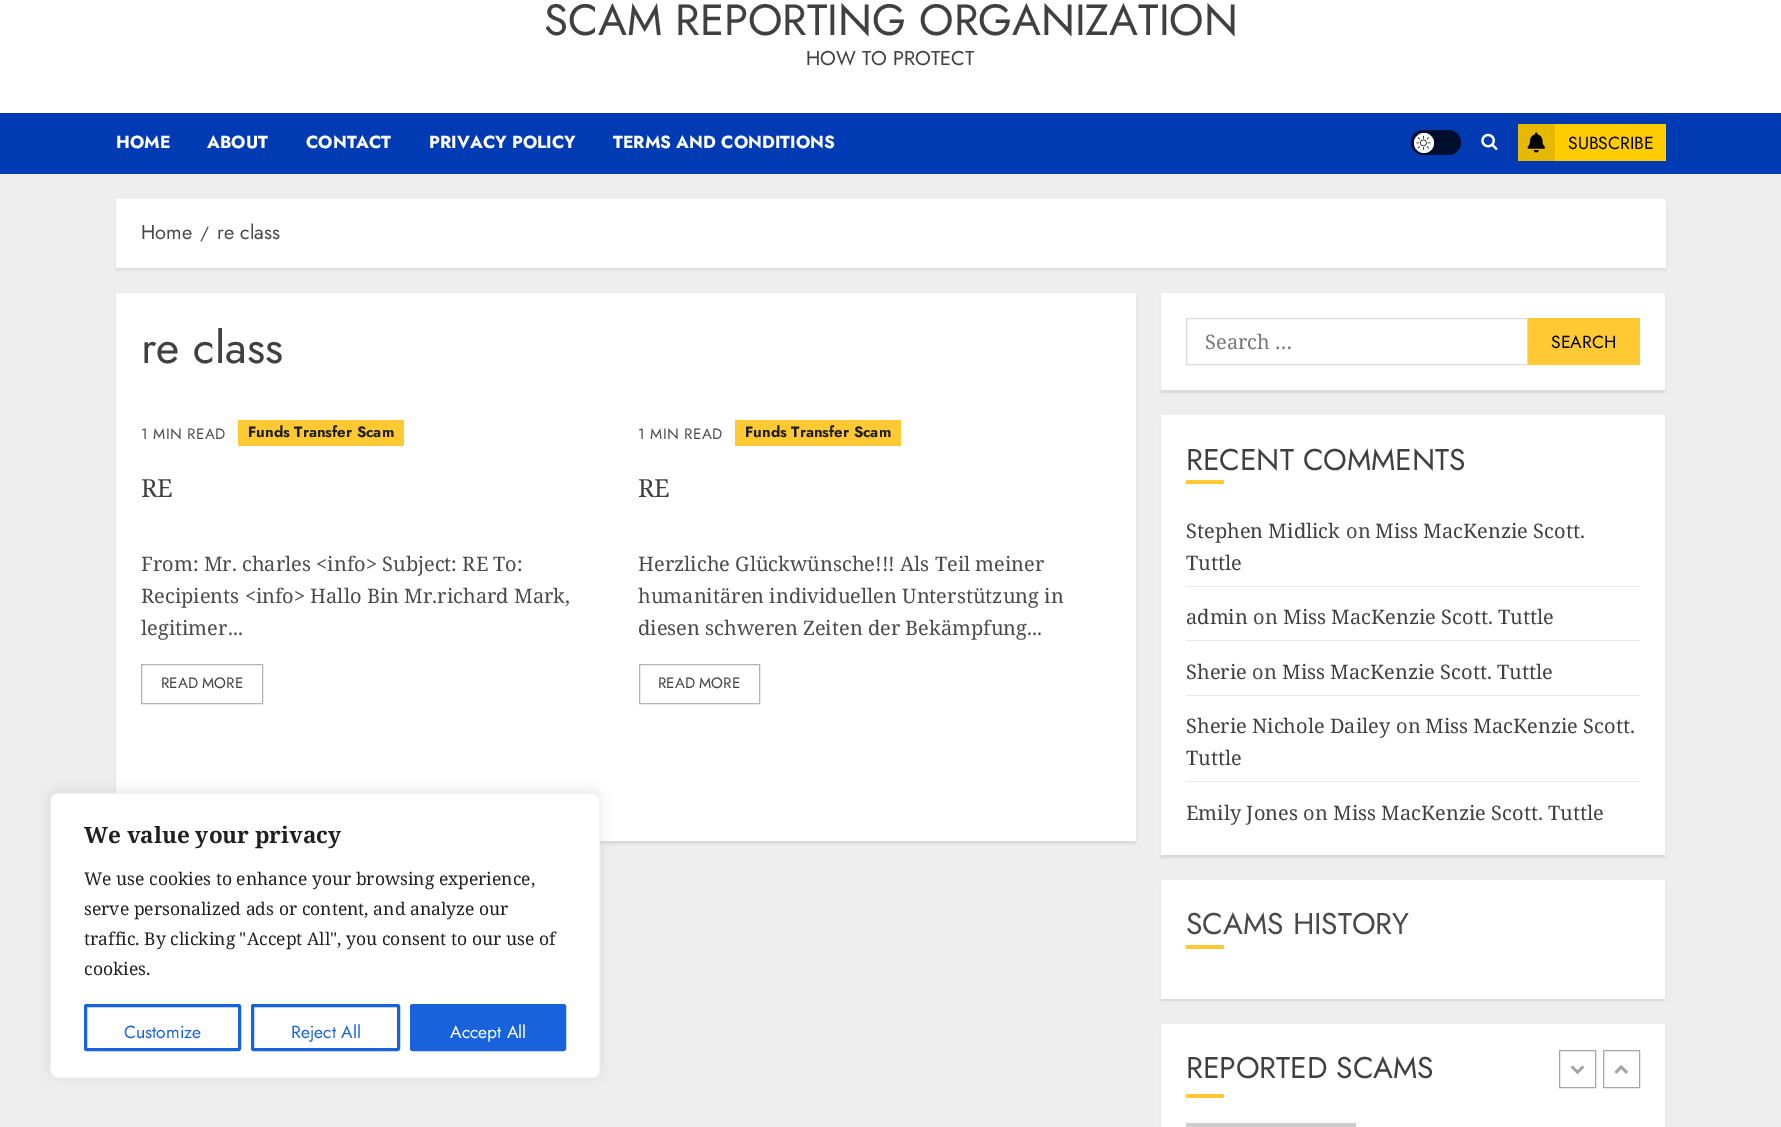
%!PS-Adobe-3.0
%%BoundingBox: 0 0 1781 1127
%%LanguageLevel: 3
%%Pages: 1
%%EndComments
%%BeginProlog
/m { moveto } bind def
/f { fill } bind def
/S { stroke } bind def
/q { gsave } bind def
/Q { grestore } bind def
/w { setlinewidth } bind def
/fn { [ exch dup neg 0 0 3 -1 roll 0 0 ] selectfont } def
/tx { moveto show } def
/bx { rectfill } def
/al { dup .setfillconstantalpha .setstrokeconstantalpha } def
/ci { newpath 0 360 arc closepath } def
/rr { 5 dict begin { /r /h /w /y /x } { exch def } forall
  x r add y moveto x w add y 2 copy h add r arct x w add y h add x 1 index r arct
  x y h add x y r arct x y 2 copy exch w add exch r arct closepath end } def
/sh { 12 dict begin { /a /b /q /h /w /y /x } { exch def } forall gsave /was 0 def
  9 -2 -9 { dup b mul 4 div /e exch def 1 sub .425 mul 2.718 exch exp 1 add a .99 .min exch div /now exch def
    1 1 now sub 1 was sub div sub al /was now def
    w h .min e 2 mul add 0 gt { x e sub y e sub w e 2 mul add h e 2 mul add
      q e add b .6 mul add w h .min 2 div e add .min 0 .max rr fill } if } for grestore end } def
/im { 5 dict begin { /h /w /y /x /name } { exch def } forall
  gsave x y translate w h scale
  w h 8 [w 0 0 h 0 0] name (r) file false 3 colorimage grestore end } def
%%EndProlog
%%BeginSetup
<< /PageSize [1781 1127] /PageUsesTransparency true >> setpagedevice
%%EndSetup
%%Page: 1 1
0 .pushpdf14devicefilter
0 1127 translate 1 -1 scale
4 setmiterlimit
0.933 setgray
0 0 1781 1127 bx
1 setgray
0 0 1781 113 bx
/Jost-Regular 43.75 fn
0.251 setgray
(SCAM REPORTING ORGANIZATION) 544 35 tx
/Jost-Regular 20 fn
(HOW TO PROTECT) 806 65 tx
0 0.231 0.702 setrgbcolor
0 113 1781 61 bx
/Jost-Bold 17.5 fn
1 setgray
(HOME) 116 148 tx
(ABOUT) 207 148 tx
(CONTACT) 306 148 tx
(PRIVACY POLICY) 429 148 tx
(TERMS AND CONDITIONS) 613 148 tx
0 0.059 0.176 setrgbcolor
1411 130 50 25 12.5 rr f
1 setgray
1424 143 10 ci f
(image0.raw) 1416 135 15 15 im
(image1.raw) 1481 133 17 17 im
1 0.8 0 setrgbcolor
1555 124 111 37 bx
0.902 0.722 0 setrgbcolor
1518 124 37 37 bx
(image2.raw) 1527 132 18 21 im
/Jost-Regular 17.5 fn
0 setgray
(SUBSCRIBE) 1568 149 tx
116 201 1550 69 0 1 0.08 sh
1 setgray
116 199 1550 69 bx
/Jost-Regular 20 fn
0.29 setgray
(Home) 141 239 tx
/Jost-Regular 17.5 fn
(/) 200 239 tx
/Jost-Regular 20 fn
(re class) 217 239 tx
0 setgray
116 295 1020 549 0 1 0.08 sh
1 setgray
116 293 1020 548 bx
/Jost-Regular 45 fn
0.251 setgray
(re class) 141 363 tx
/Jost-Regular 15 fn
0.29 setgray
141 439 m 0.5 0 (1 MIN READ) ashow
1 0.788 0.204 setrgbcolor
238 420 166 26 bx
/Jost-Bold 15 fn
0.125 setgray
(Funds Transfer Scam) 248 437 tx
/NotoSerif-Regular 25 fn
0.251 setgray
(RE) 141 497 tx
/NotoSerif-Regular 20 fn
0.29 setgray
(From: Mr. charles <info> Subject: RE To:) 141 571 tx
(Recipients <info> Hallo Bin Mr.richard Mark,) 141 603 tx
(legitimer...) 141 635 tx
0.702 setgray
141.5 664.5 121 39 rectstroke
/Jost-Regular 15 fn
0.251 setgray
(READ MORE) 161 688 tx
0.29 setgray
638 439 m 0.5 0 (1 MIN READ) ashow
1 0.788 0.204 setrgbcolor
735 420 166 26 bx
/Jost-Bold 15 fn
0.125 setgray
(Funds Transfer Scam) 745 437 tx
/NotoSerif-Regular 25 fn
0.251 setgray
(RE) 638 497 tx
/NotoSerif-Regular 20 fn
0.29 setgray
(Herzliche Glückwünsche!!! Als Teil meiner) 638 571 tx
(humanitären individuellen Unterstützung in) 638 603 tx
(diesen schweren Zeiten der Bekämpfung...) 638 635 tx
0.702 setgray
639.5 664.5 120 39 rectstroke
/Jost-Regular 15 fn
0.251 setgray
(READ MORE) 658 688 tx
0 setgray
1161 295 504 98 0 1 0.08 sh
1 setgray
1161 293 504 97 bx
0.851 setgray
1186.5 318.5 341 46 rectstroke
/NotoSerif-Regular 20 fn
0.459 setgray
(Search …) 1205 349 tx
1 0.788 0.204 setrgbcolor
1528 318 112 47 bx
/Jost-Regular 17.5 fn
0 setgray
(SEARCH) 1551 348 tx
1161 418 504 440 0 1 0.08 sh
1 setgray
1161 415 504 440 bx
/Jost-Regular 30 fn
0.251 setgray
(RECENT COMMENTS) 1186 470 tx
1 0.788 0.204 setrgbcolor
1186 480 38 4 bx
0.902 setgray
1186 586 454 1 bx
/NotoSerif-Regular 20 fn
0.251 setgray
(Stephen Midlick) 1186 538 tx
0.29 setgray
(on) 1346 538 tx
0.251 setgray
(Miss MacKenzie Scott.) 1375 538 tx
(Tuttle) 1186 570 tx
0.902 setgray
1186 640 454 1 bx
0.251 setgray
(admin) 1186 624 tx
0.29 setgray
(on) 1253 624 tx
0.251 setgray
(Miss MacKenzie Scott. Tuttle) 1283 624 tx
0.902 setgray
1186 695 454 1 bx
0.251 setgray
(Sherie) 1186 679 tx
0.29 setgray
(on) 1252 679 tx
0.251 setgray
(Miss MacKenzie Scott. Tuttle) 1282 679 tx
0.902 setgray
1186 781 454 1 bx
0.251 setgray
(Sherie Nichole Dailey) 1186 733 tx
0.29 setgray
(on) 1396 733 tx
0.251 setgray
(Miss MacKenzie Scott.) 1425 733 tx
(Tuttle) 1186 765 tx
(Emily Jones) 1186 820 tx
0.29 setgray
(on) 1303 820 tx
0.251 setgray
(Miss MacKenzie Scott. Tuttle) 1333 820 tx
0 setgray
1161 883 504 118 0 1 0.08 sh
1 setgray
1161 880 504 119 bx
/Jost-Regular 30 fn
0.29 setgray
(SCAMS HISTORY) 1186 934 tx
1 0.788 0.204 setrgbcolor
1186 945 38 4 bx
0 setgray
1161 1026 504 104 0 1 0.08 sh
1 setgray
1161 1024 504 103 bx
0.251 setgray
(REPORTED SCAMS) 1186 1078 tx
1 0.788 0.204 setrgbcolor
1186 1094 38 4 bx
0.647 setgray
1559.5 1050.5 36 37 rectstroke
(image3.raw) 1570 1065 15 10 im
1603.5 1050.5 36 37 rectstroke
(image4.raw) 1614 1065 14 9 im
0.8 setgray
1186 1123 170 4 bx
0.675 0.671 0.671 setrgbcolor
50 791 550 285 8 6 0.3 sh
1 setgray
50.5 793.5 549 284 7.5 rr q f Q
0.957 setgray
S
/NotoSerif-Bold 22.5 fn
0.125 setgray
(We value your privacy) 84 843 tx
/NotoSerif-Regular 17.5 fn
(We use cookies to enhance your browsing experience,) 84 885 tx
(serve personalized ads or content, and analyze our) 84 915 tx
(traffic. By clicking "Accept All", you consent to our use of) 84 945 tx
(cookies.) 84 975 tx
0.094 0.388 0.863 setrgbcolor
3 w
85.5 1005.5 154 44 1 rr S
/Jost-Regular 17.5 fn
(Customize) 124 1038 tx
252.5 1005.5 146 44 1 rr S
(Reject All) 291 1038 tx
411.5 1005.5 153 44 1 rr q f Q
S
1 setgray
(Accept All) 450 1038 tx
.poppdf14devicefilter showpage
%%EOF
